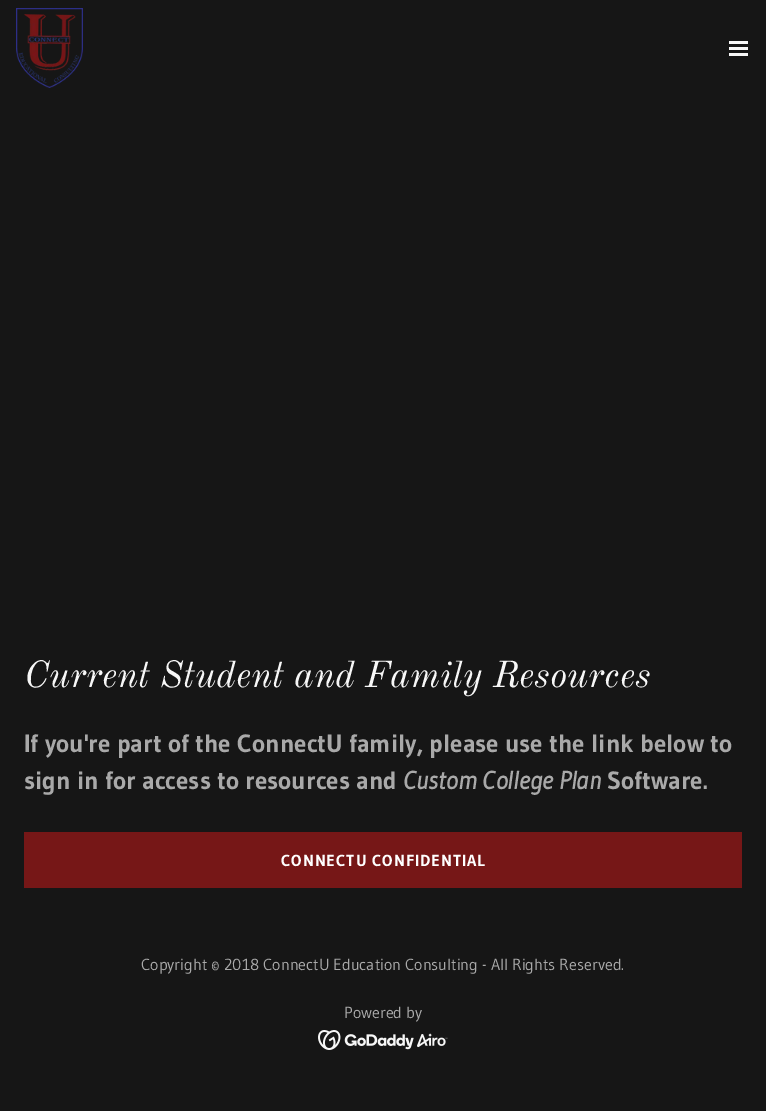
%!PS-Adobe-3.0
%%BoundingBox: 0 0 766 1111
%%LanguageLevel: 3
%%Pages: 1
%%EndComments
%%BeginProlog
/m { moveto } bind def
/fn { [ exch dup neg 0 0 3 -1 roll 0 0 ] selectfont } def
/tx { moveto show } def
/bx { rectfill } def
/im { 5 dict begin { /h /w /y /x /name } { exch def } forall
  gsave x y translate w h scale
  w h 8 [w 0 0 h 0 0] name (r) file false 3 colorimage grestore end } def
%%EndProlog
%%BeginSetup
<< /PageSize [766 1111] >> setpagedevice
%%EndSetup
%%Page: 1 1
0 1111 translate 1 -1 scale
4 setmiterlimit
0.086 setgray
0 0 766 1111 bx
(image0.raw) 16 8 67 80 im
0.969 setgray
729 41 19 3 bx
729 47 19 3 bx
729 53 19 3 bx
/OldStandardTT-Italic 37 fn
(Current Student and Family Resources) 24 687 tx
/Gudea-Bold 25 fn
0.663 setgray
(If you're part of the ConnectU family, please use the link below to) 24 752 tx
(sign in for access to resources and) 24 789 tx
/Gudea-BoldItalic 25 fn
(Custom College Plan) 403 789 tx
/Gudea-Bold 25 fn
(Software.) 607 789 tx
0.463 0.09 0.09 setrgbcolor
24 832 718 56 bx
/Gudea-Bold 16 fn
1 setgray
281 866 m 1 0 (CONNECTU CONFIDENTIAL) ashow
/Gudea-Regular 16 fn
0.663 setgray
(Copyright © 2018 ConnectU Education Consulting - All Rights Reserved.) 141 970 tx
(Powered by) 344 1018 tx
(image1.raw) 318 1030 130 20 im
showpage
%%EOF
